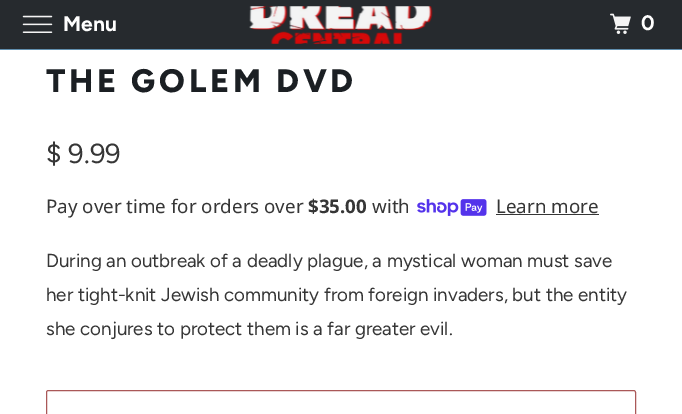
%!PS-Adobe-3.0
%%BoundingBox: 0 0 682 414
%%LanguageLevel: 3
%%Pages: 1
%%EndComments
%%BeginProlog
/m { moveto } bind def
/S { stroke } bind def
/fn { [ exch dup neg 0 0 3 -1 roll 0 0 ] selectfont } def
/tx { moveto show } def
/bx { rectfill } def
/rr { 5 dict begin { /r /h /w /y /x } { exch def } forall
  x r add y moveto x w add y 2 copy h add r arct x w add y h add x 1 index r arct
  x y h add x y r arct x y 2 copy exch w add exch r arct closepath end } def
/im { 5 dict begin { /h /w /y /x /name } { exch def } forall
  gsave x y translate w h scale
  w h 8 [w 0 0 h 0 0] name (r) file false 3 colorimage grestore end } def
%%EndProlog
%%BeginSetup
<< /PageSize [682 414] >> setpagedevice
%%EndSetup
%%Page: 1 1
0 414 translate 1 -1 scale
4 setmiterlimit
1 setgray
0 0 682 414 bx
0.149 0.165 0.18 setrgbcolor
0 0 682 49 bx
0.376 0.557 0.682 setrgbcolor
0 49 682 1 bx
(image0.raw) 22 15 31 18 im
/Figtree-Bold 21 fn
1 setgray
(Menu) 63 31 tx
(image1.raw) 249 6 184 38 im
(image2.raw) 610 13 21 21 im
(0) 641 30 tx
/Figtree-ExtraBold 32.5 fn
0.106 0.122 0.137 setrgbcolor
46 92 m 3.75 0 (THE GOLEM DVD) ashow
/Figtree-Regular 27.5 fn
0.212 setgray
($ 9.99) 46 163 tx
/NotoSans-Regular 18.75 fn
(Pay over time for orders over) 46 213 tx
/NotoSans-Bold 18.75 fn
($35.00) 308 213 tx
/NotoSans-Regular 18.75 fn
(with) 372 213 tx
(image3.raw) 417 199 70 17 im
(Learn more) 496 213 tx
496 214 103 1 bx
/Figtree-Regular 18.75 fn
(During an outbreak of a deadly plague, a mystical woman must save) 46 267 tx
(her tight-knit Jewish community from foreign invaders, but the entity) 46 301 tx
(she conjures to protect them is a far greater evil.) 46 335 tx
0.667 0.345 0.345 setrgbcolor
46.5 390.5 589 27 2 rr S
showpage
%%EOF
